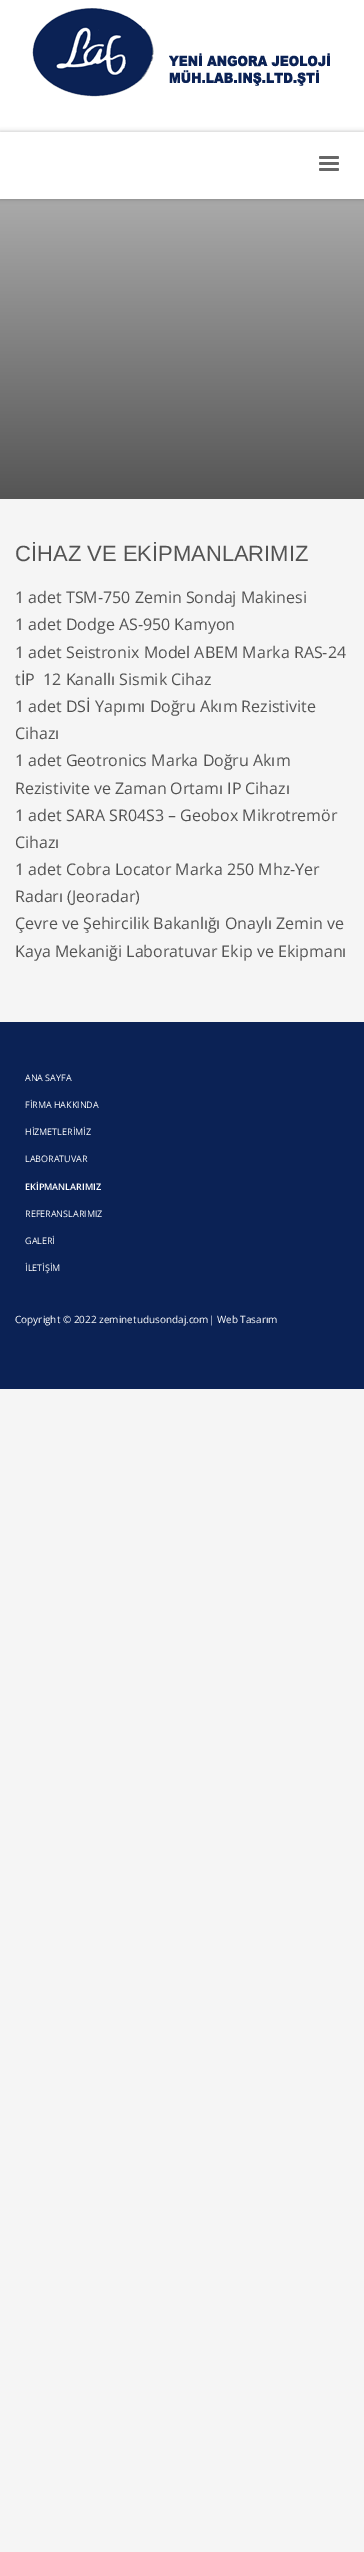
%!PS-Adobe-3.0
%%BoundingBox: 0 0 364 2552
%%LanguageLevel: 3
%%Pages: 1
%%EndComments
%%BeginProlog
/m { moveto } bind def
/l { lineto } bind def
/h { closepath } bind def
/f { fill } bind def
/q { gsave } bind def
/Q { grestore } bind def
/fn { [ exch dup neg 0 0 3 -1 roll 0 0 ] selectfont } def
/tx { moveto show } def
/bx { rectfill } def
/al { dup .setfillconstantalpha .setstrokeconstantalpha } def
/rr { 5 dict begin { /r /h /w /y /x } { exch def } forall
  x r add y moveto x w add y 2 copy h add r arct x w add y h add x 1 index r arct
  x y h add x y r arct x y 2 copy exch w add exch r arct closepath end } def
/sh { 12 dict begin { /a /b /q /h /w /y /x } { exch def } forall gsave /was 0 def
  9 -2 -9 { dup b mul 4 div /e exch def 1 sub .425 mul 2.718 exch exp 1 add a .99 .min exch div /now exch def
    1 1 now sub 1 was sub div sub al /was now def
    w h .min e 2 mul add 0 gt { x e sub y e sub w e 2 mul add h e 2 mul add
      q e add b .6 mul add w h .min 2 div e add .min 0 .max rr fill } if } for grestore end } def
/im { 5 dict begin { /h /w /y /x /name } { exch def } forall
  gsave x y translate w h scale
  w h 8 [w 0 0 h 0 0] name (r) file false 3 colorimage grestore end } def
%%EndProlog
%%BeginSetup
<< /PageSize [364 2552] /PageUsesTransparency true >> setpagedevice
%%EndSetup
%%Page: 1 1
0 .pushpdf14devicefilter
0 2552 translate 1 -1 scale
4 setmiterlimit
0.961 setgray
0 0 364 2552 bx
1 setgray
0 0 364 132 bx
(image0.raw) 32 8 298 89 im
q 0 199 m 364 199 l 364 499 l 0 499 l h clip newpath
<< /ShadingType 2 /ColorSpace /DeviceRGB /Coords [182 199 182 499] /Extend [true true] /Function << /FunctionType 2 /Domain [0 1] /C0 [0.667 0.667 0.667] /C1 [0.333 0.333 0.333] /N 1 >> >> shfill Q
0 setgray
0 132 364 67 0 2.5 0.25 sh
1 setgray
0 132 364 67 bx
0.4 setgray
319 156 20 3 1.5 rr f
319 162 20 3 1.5 rr f
319 168 20 3 1.5 rr f
/LiberationSans-Regular 22 fn
0.325 setgray
(CİHAZ VE EKİPMANLARIMIZ) 15 561 tx
/OpenSans-Regular 16 fn
(1 adet TSM-750 Zemin Sondaj Makinesi) 15 603 tx
(1 adet Dodge AS-950 Kamyon) 15 630 tx
(1 adet Seistronix Model ABEM Marka RAS-24) 15 658 tx
(tİP  12 Kanallı Sismik Cihaz) 15 685 tx
(1 adet DSİ Yapımı Doğru Akım Rezistivite) 15 712 tx
(Cihazı) 15 739 tx
(1 adet Geotronics Marka Doğru Akım) 15 766 tx
(Rezistivite ve Zaman Ortamı IP Cihazı) 15 794 tx
(1 adet SARA SR04S3 – Geobox Mikrotremör) 15 821 tx
(Cihazı) 15 848 tx
(1 adet Cobra Locator Marka 250 Mhz-Yer) 15 875 tx
(Radarı \(Jeoradar\)) 15 902 tx
(Çevre ve Şehircilik Bakanlığı Onaylı Zemin ve) 15 929 tx
(Kaya Mekaniği Laboratuvar Ekip ve Ekipmanı) 15 957 tx
0.043 0.133 0.333 setrgbcolor
0 1022 364 367 bx
/OpenSans-Regular 9 fn
1 setgray
(ANA SAYFA) 25 1081 tx
(FİRMA HAKKINDA) 25 1108 tx
(HİZMETLERİMİZ) 25 1135 tx
(LABORATUVAR) 25 1162 tx
/OpenSans-SemiBold 9 fn
(EKİPMANLARIMIZ) 25 1190 tx
/OpenSans-Regular 9 fn
(REFERANSLARIMIZ) 25 1217 tx
(GALERİ) 25 1244 tx
(İLETİŞİM) 25 1271 tx
/OpenSans-Regular 10 fn
(Copyright © 2022 zeminetudusondaj.com| Web Tasarım) 15 1323 tx
.poppdf14devicefilter showpage
%%EOF
